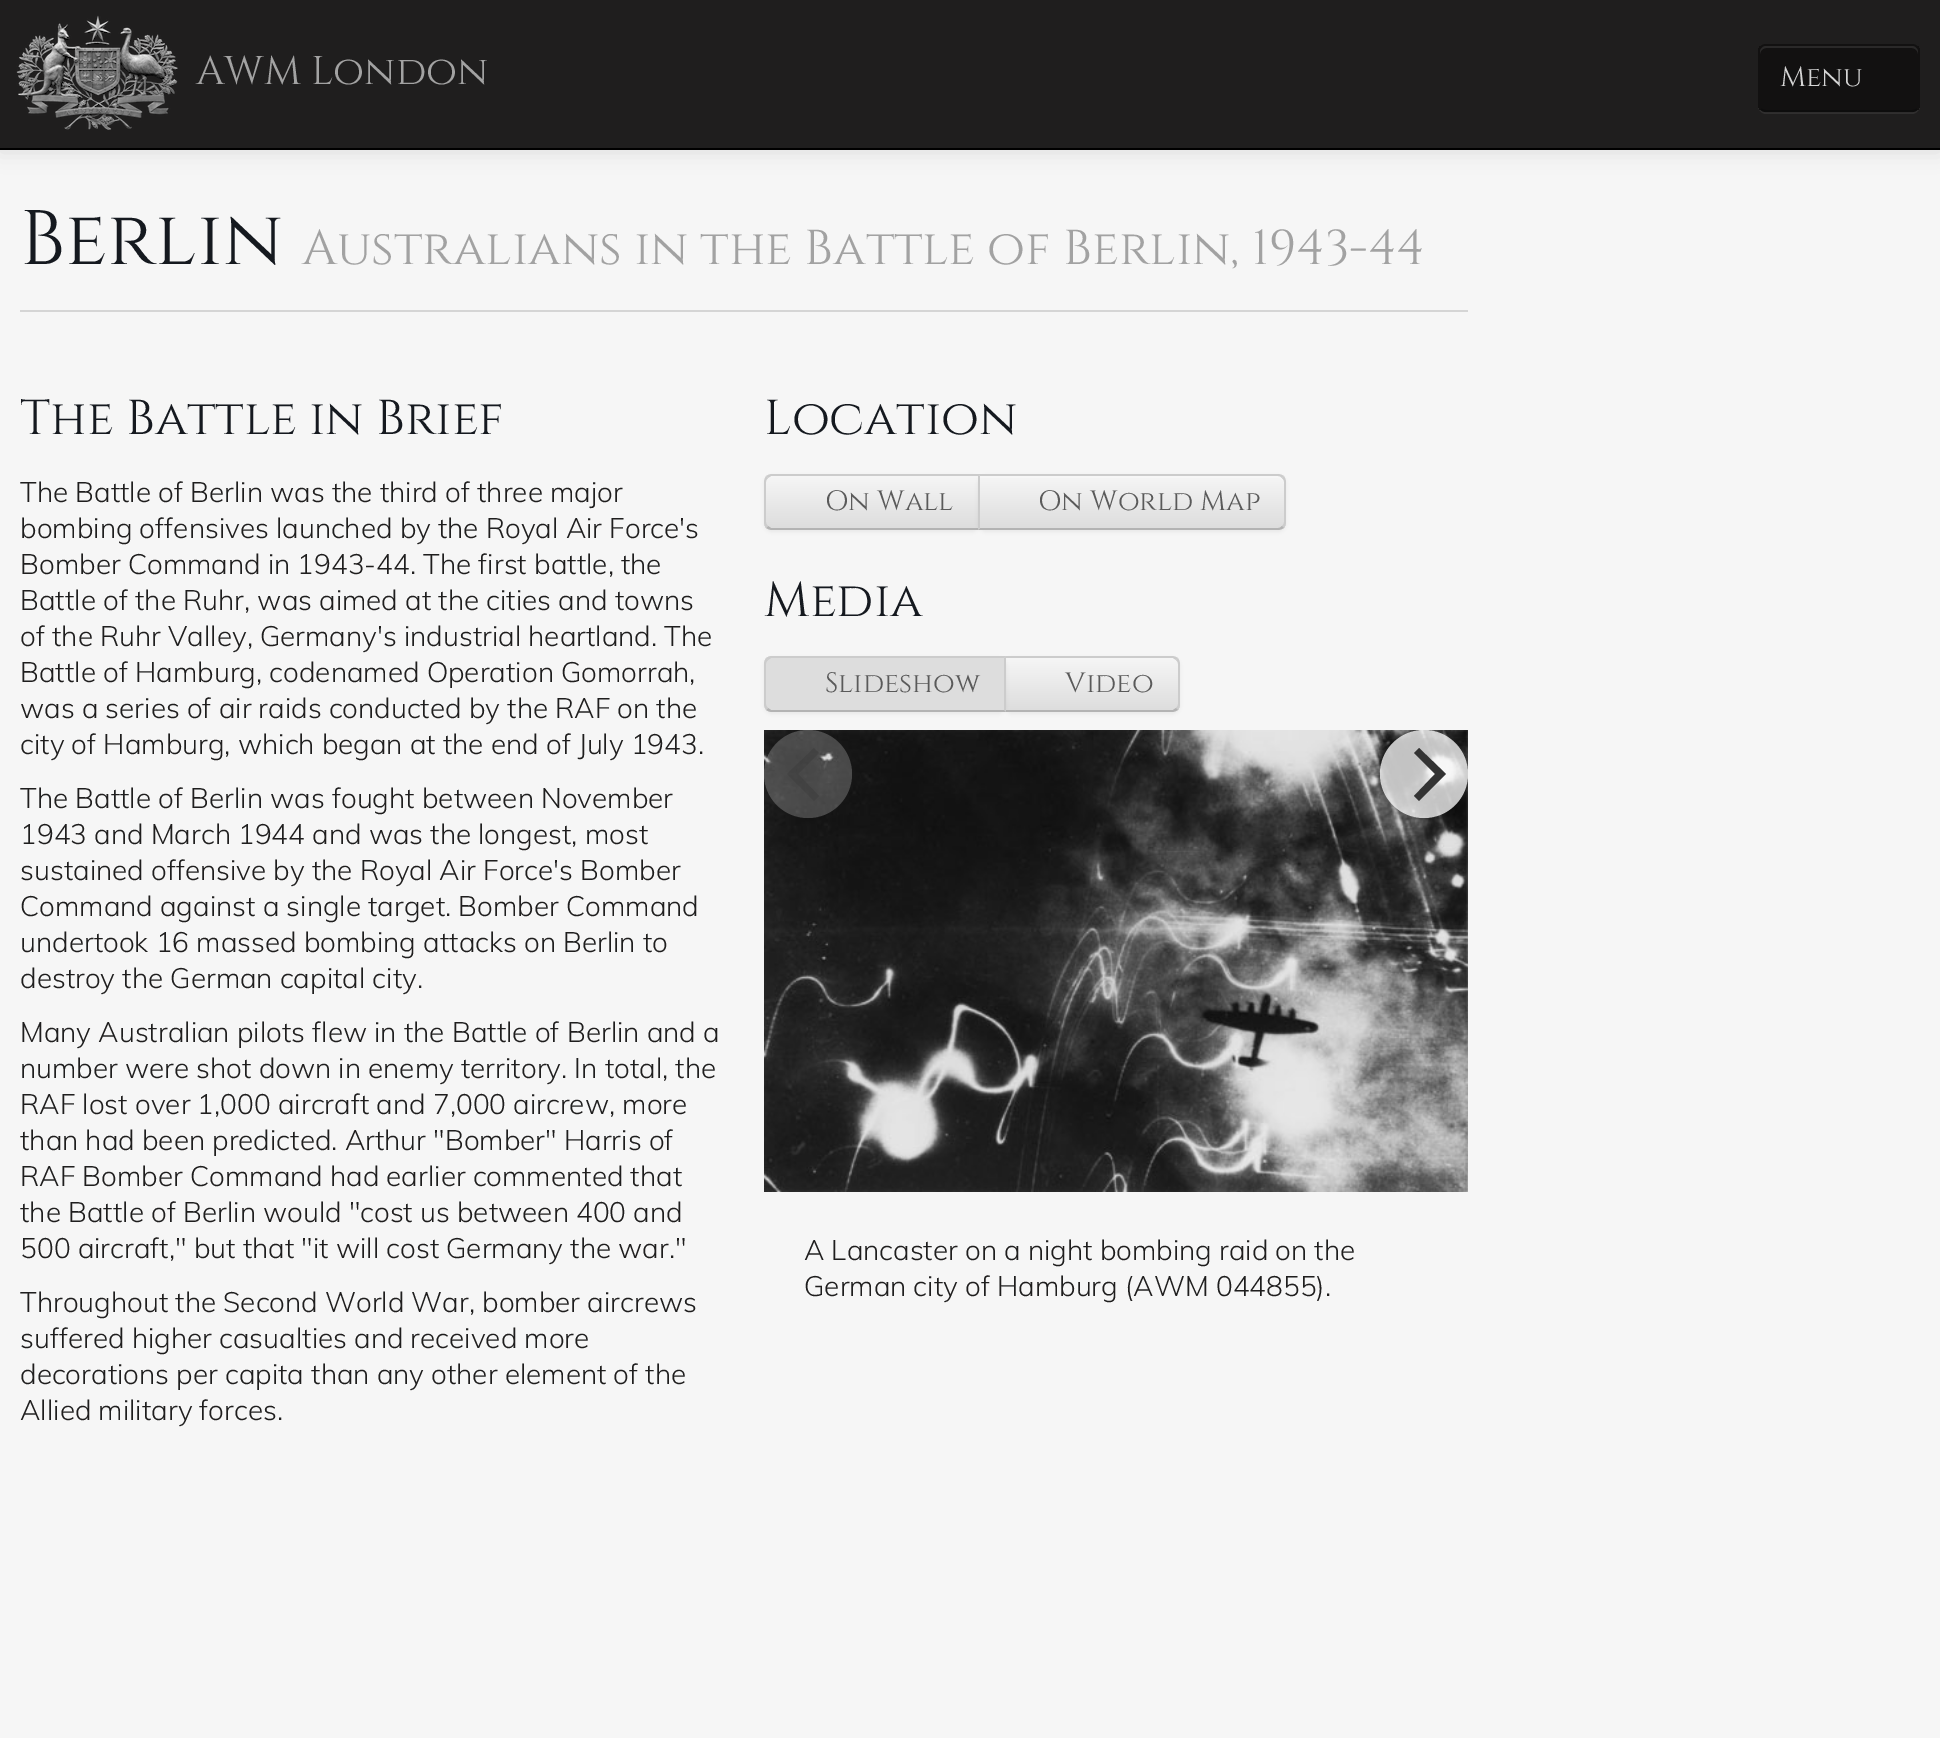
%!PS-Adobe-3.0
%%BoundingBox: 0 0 1940 1738
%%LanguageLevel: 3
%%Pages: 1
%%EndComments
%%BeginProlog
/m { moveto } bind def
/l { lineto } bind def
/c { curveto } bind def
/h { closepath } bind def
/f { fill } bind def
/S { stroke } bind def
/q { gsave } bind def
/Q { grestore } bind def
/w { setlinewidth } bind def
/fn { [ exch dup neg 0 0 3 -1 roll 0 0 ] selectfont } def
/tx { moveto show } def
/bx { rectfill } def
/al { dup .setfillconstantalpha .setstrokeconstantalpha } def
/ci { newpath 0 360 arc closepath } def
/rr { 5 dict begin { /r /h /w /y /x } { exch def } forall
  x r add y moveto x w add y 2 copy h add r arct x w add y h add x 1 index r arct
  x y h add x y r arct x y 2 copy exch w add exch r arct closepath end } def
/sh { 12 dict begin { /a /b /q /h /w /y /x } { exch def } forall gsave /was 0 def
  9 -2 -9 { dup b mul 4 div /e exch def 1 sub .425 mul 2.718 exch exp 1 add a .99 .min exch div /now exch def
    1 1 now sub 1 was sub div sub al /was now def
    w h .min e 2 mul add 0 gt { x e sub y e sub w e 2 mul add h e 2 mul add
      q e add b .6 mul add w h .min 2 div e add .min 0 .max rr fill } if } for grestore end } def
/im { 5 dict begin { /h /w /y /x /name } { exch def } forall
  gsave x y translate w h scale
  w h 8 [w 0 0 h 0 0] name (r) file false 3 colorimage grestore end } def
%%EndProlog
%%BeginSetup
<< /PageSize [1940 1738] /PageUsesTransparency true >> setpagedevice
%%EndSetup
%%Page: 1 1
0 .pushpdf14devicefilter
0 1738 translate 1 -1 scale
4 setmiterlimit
0.965 setgray
0 0 1940 1738 bx
0 setgray
0 2 1940 150 0 10 0.1 sh
0.122 0.118 0.118 setrgbcolor
0 0 1940 148 bx
0 setgray
0 148 1940 2 bx
(image0.raw) 16 15 162 115 im
/Cinzel-Regular 40 fn
0.635 setgray
(AWM London) 196 84 tx
0.188 0.184 0.184 setrgbcolor
1758 104 m 1758 106 l 1758 110 1762 114 1766 114 c 1912 114 l 1916 114 1920 110 1920 106 c 1920 104 l 1920 108 1916 112 1912 112 c 1766 112 l 1762 112 1758 108 1758 104 c h f
0.071 0.067 0.067 setrgbcolor
1758 44 162 68 8 rr f
q
1758 44 162 68 8 rr clip newpath
1758 46 162 64 bx
Q
0.165 0.161 0.161 setrgbcolor
1766 48 m 1912 48 l 1915 48 1918 51 1918 54 c 1918 52 l 1918 49 1915 46 1912 46 c 1766 46 l 1763 46 1760 49 1760 52 c 1760 54 l 1760 51 1763 48 1766 48 c h f
0.25 al
0 setgray
2 w
1917 109 m 1915.5 110.5 1914 111 1912 111 c 1766 111 l 1764 111 1762.5 110.5 1761 109 c S
/Cinzel-Regular 28 fn
1 al
0.835 setgray
(Menu) 1780 86 tx
20 310 1448 2 bx
/Cinzel-Regular 77 fn
0.082 0.098 0.122 setrgbcolor
(Berlin) 20 264 tx
/Cinzel-Regular 49 fn
0.635 setgray
(Australians in the Battle of Berlin, 1943-44) 302 264 tx
0.082 0.098 0.122 setrgbcolor
(The Battle in Brief) 20 434 tx
/Muli-Light 28 fn
0.122 0.118 0.118 setrgbcolor
(The Battle of Berlin was the third of three major) 20 502 tx
(bombing offensives launched by the Royal Air Force's) 20 538 tx
(Bomber Command in 1943-44. The first battle, the) 20 574 tx
(Battle of the Ruhr, was aimed at the cities and towns) 20 610 tx
(of the Ruhr Valley, Germany's industrial heartland. The) 20 646 tx
(Battle of Hamburg, codenamed Operation Gomorrah,) 20 682 tx
(was a series of air raids conducted by the RAF on the) 20 718 tx
(city of Hamburg, which began at the end of July 1943.) 20 754 tx
(The Battle of Berlin was fought between November) 20 808 tx
(1943 and March 1944 and was the longest, most) 20 844 tx
(sustained offensive by the Royal Air Force's Bomber) 20 880 tx
(Command against a single target. Bomber Command) 20 916 tx
(undertook 16 massed bombing attacks on Berlin to) 20 952 tx
(destroy the German capital city.) 20 988 tx
(Many Australian pilots flew in the Battle of Berlin and a) 20 1042 tx
(number were shot down in enemy territory. In total, the) 20 1078 tx
(RAF lost over 1,000 aircraft and 7,000 aircrew, more) 20 1114 tx
(than had been predicted. Arthur "Bomber" Harris of) 20 1150 tx
(RAF Bomber Command had earlier commented that) 20 1186 tx
(the Battle of Berlin would "cost us between 400 and) 20 1222 tx
(500 aircraft," but that "it will cost Germany the war.") 20 1258 tx
(Throughout the Second World War, bomber aircrews) 20 1312 tx
(suffered higher casualties and received more) 20 1348 tx
(decorations per capita than any other element of the) 20 1384 tx
(Allied military forces.) 20 1420 tx
/Cinzel-Regular 49 fn
0.082 0.098 0.122 setrgbcolor
(Location) 764 434 tx
0 setgray
764 476 216 56 8 2 0.05 sh
q
772 474 m 980 474 l 980 530 l 772 530 l 767.5 530 764 526.5 764 522 c 764 482 l 764 477.5 767.5 474 772 474 c h clip newpath
q 764 476 m 978 476 l 978 528 l 764 528 l h clip newpath
<< /ShadingType 2 /ColorSpace /DeviceRGB /Coords [872 476 872 528] /Extend [true true] /Function << /FunctionType 2 /Domain [0 1] /C0 [0.965 0.965 0.965] /C1 [0.867 0.867 0.867] /N 1 >> >> shfill Q
Q
0.8 setgray
772 474 m 770 474 768 475 766 476 c 768 478 l 771 476 l 978 476 l 980 474 l h f
0.702 setgray
980 530 m 978 528 l 771 528 l 768 526 l 766 528 l 768 529 770 530 772 530 c h f
0.8 setgray
764 482 m 764 522 l 764 524 765 526 766 528 c 768 526 l 767 525 766 524 766 522 c 766 482 l 766 480 767 479 768 478 c 766 476 l 765 478 764 480 764 482 c h f
/Cinzel-Regular 28 fn
0.353 setgray
(On Wall) 825 510 tx
0 setgray
978 476 308 56 8 2 0.05 sh
q
978 474 m 1278 474 l 1282.5 474 1286 477.5 1286 482 c 1286 522 l 1286 526.5 1282.5 530 1278 530 c 978 530 l h clip newpath
q 980 476 m 1286 476 l 1286 528 l 980 528 l h clip newpath
<< /ShadingType 2 /ColorSpace /DeviceRGB /Coords [1132 476 1132 528] /Extend [true true] /Function << /FunctionType 2 /Domain [0 1] /C0 [0.965 0.965 0.965] /C1 [0.867 0.867 0.867] /N 1 >> >> shfill Q
Q
0.969 setgray
980 478 m 1278 478 l 1281 478 1284 481 1284 484 c 1284 481 1283 477 1279 476 c 980 476 l h f
0.8 setgray
978 474 m 980 476 l 1278 476 l 1280 476 1281 477 1282 478 c 1284 476 l 1282 475 1280 474 1278 474 c h f
1286 522 m 1286 482 l 1286 480 1285 478 1284 476 c 1282 478 l 1283 479 1284 480 1284 482 c 1284 522 l 1284 524 1283 525 1282 526 c 1284 528 l 1285 526 1286 524 1286 522 c h f
0.702 setgray
1278 530 m 1280 530 1282 529 1284 528 c 1282 526 l 1281 527 1280 528 1278 528 c 980 528 l 978 530 l h f
0.8 setgray
978 474 m 978 530 l 980 528 l 980 476 l h f
0.353 setgray
(On World Map) 1038 510 tx
/Cinzel-Regular 49 fn
0.082 0.098 0.122 setrgbcolor
(Media) 764 616 tx
0 setgray
1004 658 176 56 8 2 0.05 sh
q
1004 656 m 1172 656 l 1176.5 656 1180 659.5 1180 664 c 1180 704 l 1180 708.5 1176.5 712 1172 712 c 1004 712 l h clip newpath
q 1006 658 m 1180 658 l 1180 710 l 1006 710 l h clip newpath
<< /ShadingType 2 /ColorSpace /DeviceRGB /Coords [1092 658 1092 710] /Extend [true true] /Function << /FunctionType 2 /Domain [0 1] /C0 [0.965 0.965 0.965] /C1 [0.867 0.867 0.867] /N 1 >> >> shfill Q
Q
0.8 setgray
1004 656 m 1006 658 l 1173 658 l 1176 660 l 1178 658 l 1176 657 1174 656 1172 656 c h f
1180 704 m 1180 664 l 1180 662 1179 660 1178 658 c 1176 660 l 1177 661 1178 662 1178 664 c 1178 704 l 1178 706 1177 707 1176 708 c 1178 710 l 1179 708 1180 706 1180 704 c h f
0.702 setgray
1172 712 m 1174 712 1176 711 1178 710 c 1176 708 l 1173 710 l 1006 710 l 1004 712 l h f
0 setgray
764 658 242 56 8 2 0.05 sh
0.867 setgray
772 656 m 1006 656 l 1006 712 l 772 712 l 767.5 712 764 708.5 764 704 c 764 664 l 764 659.5 767.5 656 772 656 c h f
0.8 setgray
772 656 m 770 656 768 657 766 658 c 768 660 l 771 658 l 1004 658 l 1006 656 l h f
1006 656 m 1004 658 l 1004 710 l 1006 712 l h f
0.702 setgray
1006 712 m 1004 710 l 771 710 l 768 708 l 766 710 l 768 711 770 712 772 712 c h f
0.8 setgray
764 664 m 764 704 l 764 706 765 708 766 710 c 768 708 l 767 707 766 706 766 704 c 766 664 l 766 662 767 661 768 660 c 766 658 l 765 660 764 662 764 664 c h f
/Cinzel-Regular 28 fn
0.353 setgray
(Slideshow) 825 692 tx
(Video) 1065 692 tx
(image1.raw) 764 730 704 462 im
0.22 al
1 setgray
808 774 44 ci f
0.3 al
0.2 setgray
787 774 m 814 801 l 819 796 l 798 774 l 819 753 l 814 748 l h f
0.75 al
1 setgray
1424 774 44 ci f
1 al
0.2 setgray
1446 774 m 1419 748 l 1414 753 l 1435 774 l 1414 796 l 1419 801 l h f
/Muli-Light 28 fn
0.122 0.118 0.118 setrgbcolor
(A Lancaster on a night bombing raid on the) 804 1260 tx
(German city of Hamburg \(AWM 044855\).) 804 1296 tx
.poppdf14devicefilter showpage
%%EOF
